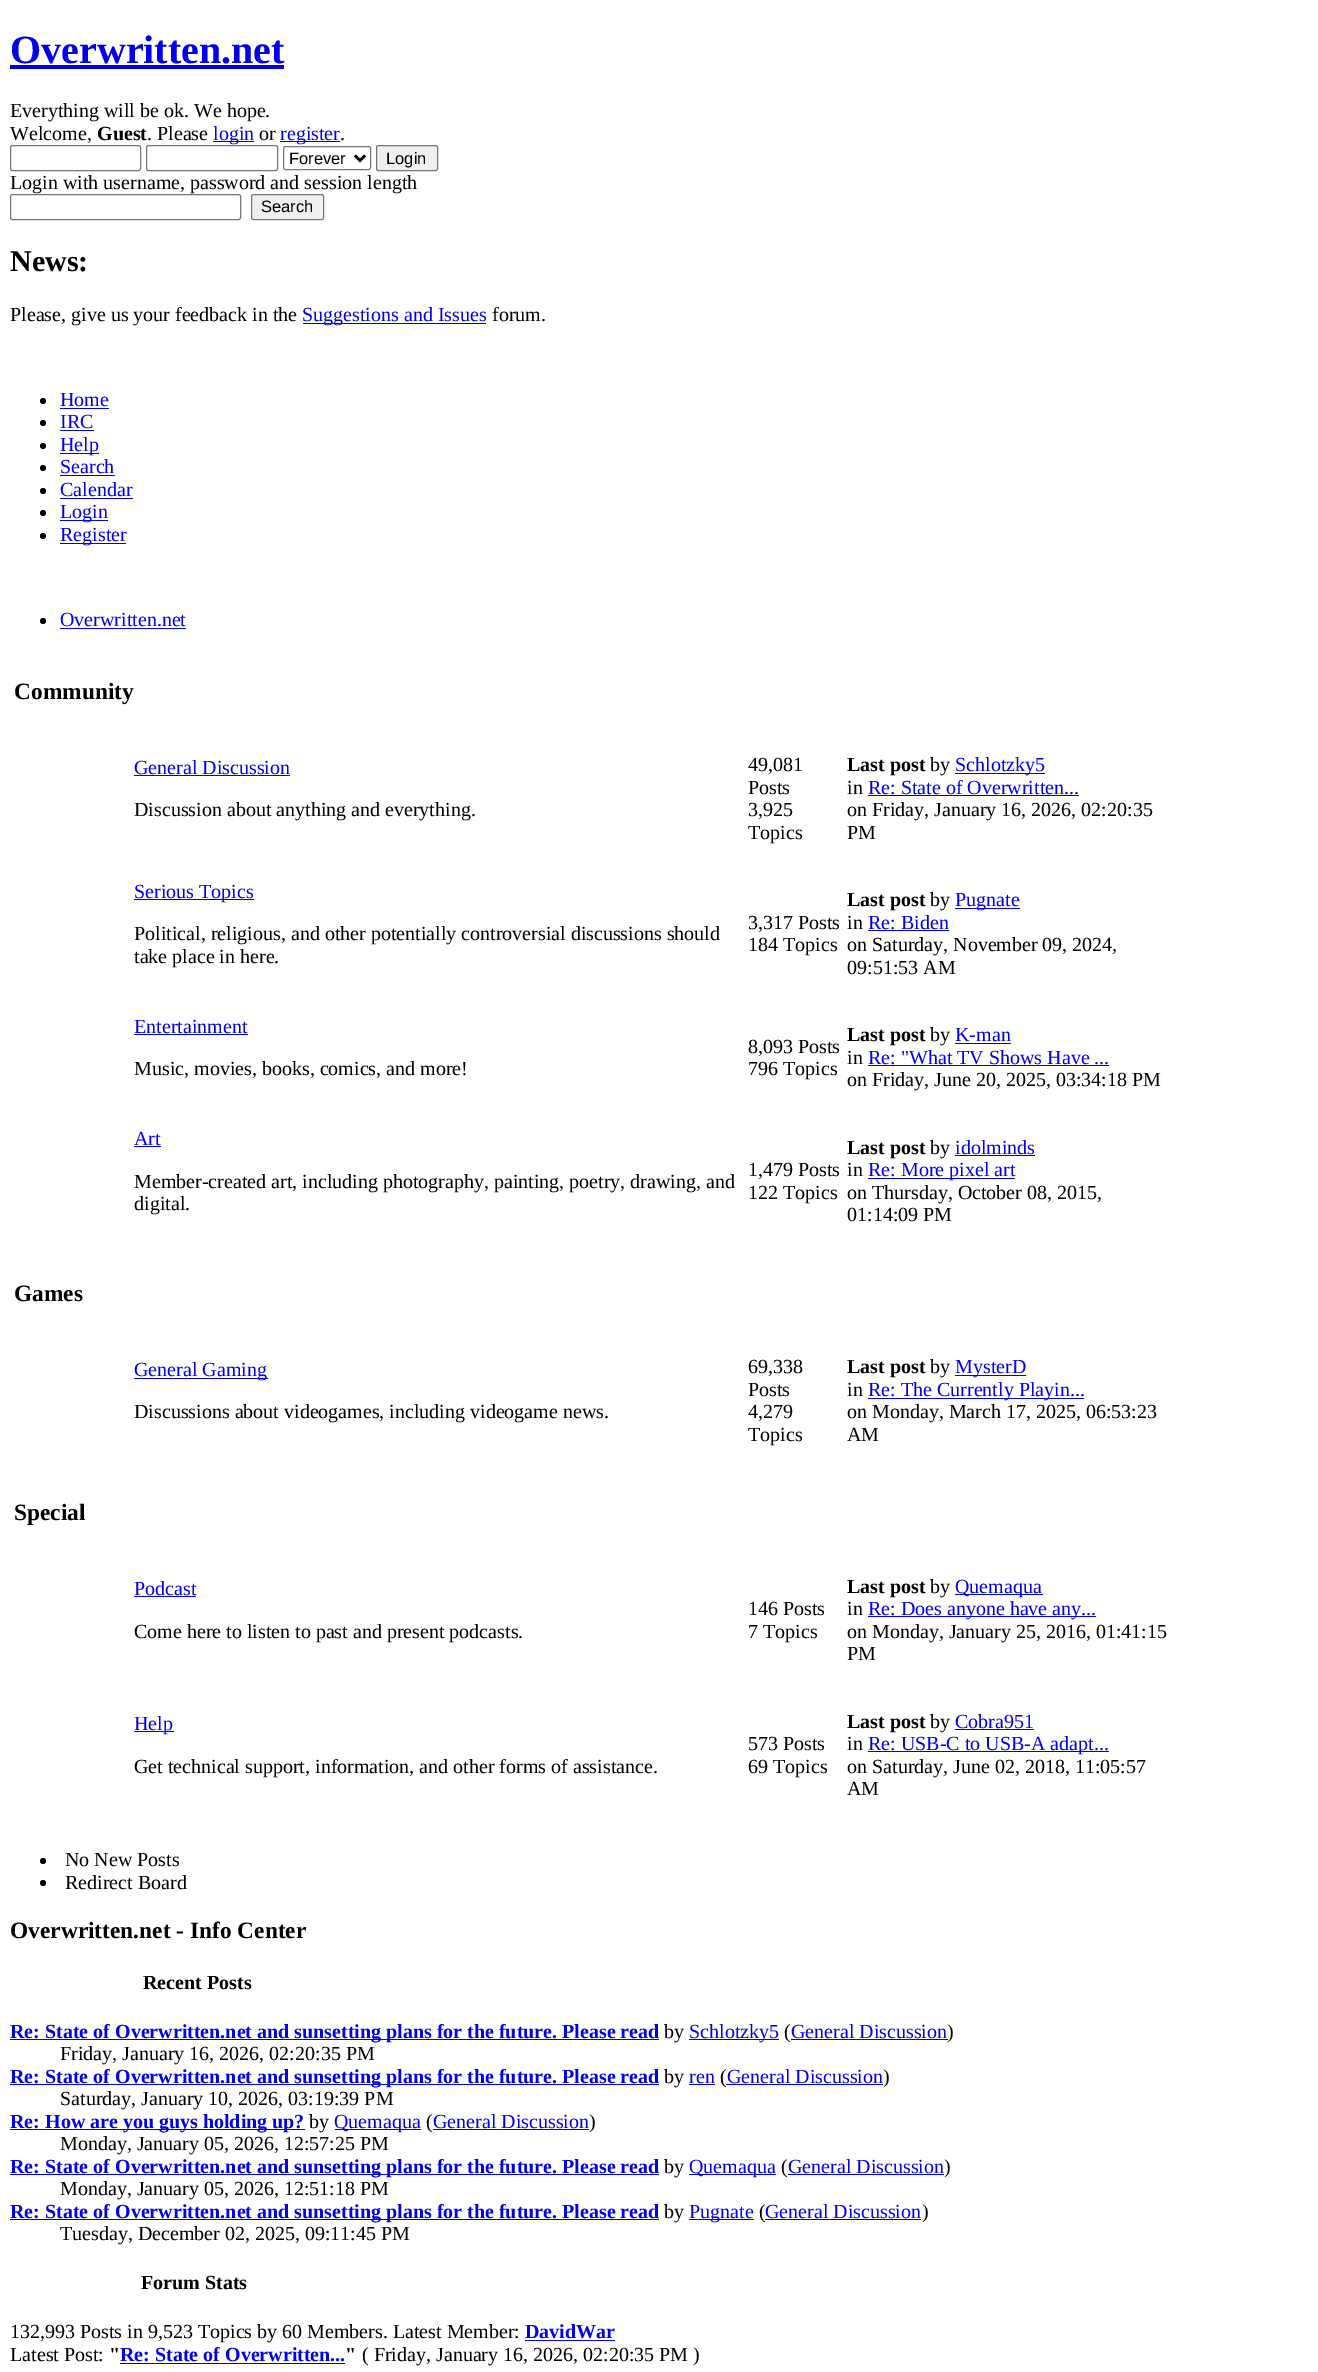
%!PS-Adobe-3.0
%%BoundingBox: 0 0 1318 2372
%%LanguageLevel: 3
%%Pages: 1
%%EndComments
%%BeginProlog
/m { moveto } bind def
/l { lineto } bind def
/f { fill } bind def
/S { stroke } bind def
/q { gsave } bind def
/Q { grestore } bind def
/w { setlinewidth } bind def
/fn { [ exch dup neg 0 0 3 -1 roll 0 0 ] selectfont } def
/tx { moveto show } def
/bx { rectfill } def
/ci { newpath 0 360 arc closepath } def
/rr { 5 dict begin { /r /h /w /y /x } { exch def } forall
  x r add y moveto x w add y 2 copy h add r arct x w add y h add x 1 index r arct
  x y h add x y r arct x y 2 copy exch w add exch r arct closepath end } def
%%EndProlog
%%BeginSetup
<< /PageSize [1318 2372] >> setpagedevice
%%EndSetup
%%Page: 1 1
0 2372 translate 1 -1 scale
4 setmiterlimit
1 setgray
0 0 1318 2372 bx
/LiberationSerif-Bold 40 fn
0 0 0.933 setrgbcolor
(Overwritten.net) 10 63 tx
10 65 274 4 bx
/LiberationSerif-Regular 20 fn
0 setgray
(Everything will be ok. We hope.) 10 117 tx
(Welcome,) 10 140 tx
/LiberationSerif-Bold 20 fn
(Guest) 97 140 tx
/LiberationSerif-Regular 20 fn
(. Please) 147 140 tx
0 0 0.933 setrgbcolor
213 141 41 1 bx
(login) 213 140 tx
0 setgray
(or) 259 140 tx
0 0 0.933 setrgbcolor
280 141 60 1 bx
(register) 280 140 tx
0 setgray
(.) 340 140 tx
0.463 setgray
10.5 145.5 130 25 2 rr S
146.5 145.5 131 25 2 rr S
283.5 146.5 87 23 2 rr S
0 setgray
2.5 w
355 155.5 m 360 160.5 l 365 155.5 l S
/LiberationSans-Regular 16.5 fn
(Forever) 289 164 tx
0.937 setgray
376.5 145.5 61 25 2 rr q f Q
0.463 setgray
1 w
S
0 setgray
(Login) 386 164 tx
/LiberationSerif-Regular 20 fn
(Login with username, password and session length) 10 189 tx
0.463 setgray
10.5 194.5 230 25 2 rr S
0.937 setgray
251.5 194.5 72 25 2 rr q f Q
0.463 setgray
S
/LiberationSans-Regular 16.5 fn
0 setgray
(Search) 261 212 tx
/LiberationSerif-Bold 30 fn
(News:) 10 271 tx
/LiberationSerif-Regular 20 fn
(Please, give us your feedback in the) 10 321 tx
0 0 0.933 setrgbcolor
303 323 183 1 bx
(Suggestions and Issues) 302 321 tx
0 setgray
(forum.) 492 321 tx
43 401 3 ci f
0 0 0.933 setrgbcolor
(Home) 60 406 tx
60 408 49 1 bx
0 setgray
43 423 3 ci f
0 0 0.933 setrgbcolor
(IRC) 60 428 tx
60 430 34 1 bx
0 setgray
43 446 3 ci f
0 0 0.933 setrgbcolor
60 453 39 1 bx
(Help) 60 451 tx
0 setgray
43 468 3 ci f
0 0 0.933 setrgbcolor
(Search) 60 473 tx
60 475 55 1 bx
0 setgray
43 491 3 ci f
0 0 0.933 setrgbcolor
(Calendar) 60 496 tx
60 498 73 1 bx
0 setgray
43 513 3 ci f
0 0 0.933 setrgbcolor
60 520 48 1 bx
(Login) 60 518 tx
0 setgray
43 536 3 ci f
0 0 0.933 setrgbcolor
60 543 66 1 bx
(Register) 60 541 tx
0 setgray
43 621 3 ci f
0 0 0.933 setrgbcolor
(Overwritten.net) 60 626 tx
60 628 126 1 bx
/LiberationSerif-Bold 23.4 fn
0 setgray
(Community) 14 699 tx
/LiberationSerif-Regular 20 fn
0 0 0.933 setrgbcolor
(General Discussion) 134 774 tx
134 775 156 1 bx
0 setgray
(Discussion about anything and everything.) 134 816 tx
(49,081) 748 771 tx
(Posts) 748 794 tx
(3,925) 748 816 tx
(Topics) 748 839 tx
/LiberationSerif-Bold 20 fn
(Last post) 847 771 tx
/LiberationSerif-Regular 20 fn
(by) 930 771 tx
0 0 0.933 setrgbcolor
955 773 90 1 bx
(Schlotzky5) 955 771 tx
0 setgray
(in) 847 794 tx
0 0 0.933 setrgbcolor
(Re: State of Overwritten...) 868 794 tx
868 795 211 1 bx
0 setgray
(on Friday, January 16, 2026, 02:20:35) 847 816 tx
(PM) 847 839 tx
0 0 0.933 setrgbcolor
134 899 120 1 bx
(Serious Topics) 134 898 tx
0 setgray
(Political, religious, and other potentially controversial discussions should) 134 940 tx
(take place in here.) 134 963 tx
(3,317 Posts) 748 929 tx
(184 Topics) 748 951 tx
/LiberationSerif-Bold 20 fn
(Last post) 847 906 tx
/LiberationSerif-Regular 20 fn
(by) 930 906 tx
0 0 0.933 setrgbcolor
955 908 65 1 bx
(Pugnate) 955 906 tx
0 setgray
(in) 847 929 tx
0 0 0.933 setrgbcolor
(Re: Biden) 868 929 tx
868 930 81 1 bx
0 setgray
(on Saturday, November 09, 2024,) 847 951 tx
(09:51:53 AM) 847 974 tx
0 0 0.933 setrgbcolor
(Entertainment) 134 1033 tx
134 1034 114 1 bx
0 setgray
(Music, movies, books, comics, and more!) 134 1075 tx
(8,093 Posts) 748 1053 tx
(796 Topics) 748 1075 tx
/LiberationSerif-Bold 20 fn
(Last post) 847 1041 tx
/LiberationSerif-Regular 20 fn
(by) 930 1041 tx
0 0 0.933 setrgbcolor
(K-man) 955 1041 tx
955 1043 56 1 bx
0 setgray
(in) 847 1064 tx
0 0 0.933 setrgbcolor
(Re: "What TV Shows Have ...) 868 1064 tx
868 1065 241 1 bx
0 setgray
(on Friday, June 20, 2025, 03:34:18 PM) 847 1086 tx
0 0 0.933 setrgbcolor
(Art) 134 1145 tx
134 1146 27 1 bx
0 setgray
(Member-created art, including photography, painting, poetry, drawing, and) 134 1188 tx
(digital.) 134 1210 tx
(1,479 Posts) 748 1176 tx
(122 Topics) 748 1199 tx
/LiberationSerif-Bold 20 fn
(Last post) 847 1154 tx
/LiberationSerif-Regular 20 fn
(by) 930 1154 tx
0 0 0.933 setrgbcolor
(idolminds) 955 1154 tx
955 1155 80 1 bx
0 setgray
(in) 847 1176 tx
0 0 0.933 setrgbcolor
868 1178 147 1 bx
(Re: More pixel art) 868 1176 tx
0 setgray
(on Thursday, October 08, 2015,) 847 1199 tx
(01:14:09 PM) 847 1221 tx
/LiberationSerif-Bold 23.4 fn
(Games) 14 1301 tx
0 0 0.933 setrgbcolor
134 1378 134 1 bx
/LiberationSerif-Regular 20 fn
(General Gaming) 134 1376 tx
0 setgray
(Discussions about videogames, including videogame news.) 134 1418 tx
(69,338) 748 1373 tx
(Posts) 748 1396 tx
(4,279) 748 1418 tx
(Topics) 748 1441 tx
/LiberationSerif-Bold 20 fn
(Last post) 847 1373 tx
/LiberationSerif-Regular 20 fn
(by) 930 1373 tx
0 0 0.933 setrgbcolor
955 1375 71 1 bx
(MysterD) 955 1373 tx
0 setgray
(in) 847 1396 tx
0 0 0.933 setrgbcolor
868 1398 216 1 bx
(Re: The Currently Playin...) 868 1396 tx
0 setgray
(on Monday, March 17, 2025, 06:53:23) 847 1418 tx
(AM) 847 1441 tx
/LiberationSerif-Bold 23.4 fn
(Special) 14 1520 tx
/LiberationSerif-Regular 20 fn
0 0 0.933 setrgbcolor
(Podcast) 134 1595 tx
134 1596 62 1 bx
0 setgray
(Come here to listen to past and present podcasts.) 134 1638 tx
(146 Posts) 748 1615 tx
(7 Topics) 748 1638 tx
/LiberationSerif-Bold 20 fn
(Last post) 847 1593 tx
/LiberationSerif-Regular 20 fn
(by) 930 1593 tx
0 0 0.933 setrgbcolor
955 1594 88 1 bx
(Quemaqua) 955 1593 tx
0 setgray
(in) 847 1615 tx
0 0 0.933 setrgbcolor
868 1616 228 1 bx
(Re: Does anyone have any...) 868 1615 tx
0 setgray
(on Monday, January 25, 2016, 01:41:15) 847 1638 tx
(PM) 847 1660 tx
0 0 0.933 setrgbcolor
134 1731 40 1 bx
(Help) 134 1730 tx
0 setgray
(Get technical support, information, and other forms of assistance.) 134 1773 tx
(573 Posts) 748 1750 tx
(69 Topics) 748 1773 tx
/LiberationSerif-Bold 20 fn
(Last post) 847 1728 tx
/LiberationSerif-Regular 20 fn
(by) 930 1728 tx
0 0 0.933 setrgbcolor
(Cobra951) 955 1728 tx
955 1729 79 1 bx
0 setgray
(in) 847 1750 tx
0 0 0.933 setrgbcolor
868 1751 241 1 bx
(Re: USB-C to USB-A adapt...) 868 1750 tx
0 setgray
(on Saturday, June 02, 2018, 11:05:57) 847 1773 tx
(AM) 847 1795 tx
43 1861 3 ci f
(No New Posts) 65 1866 tx
43 1883 3 ci f
(Redirect Board) 65 1889 tx
/LiberationSerif-Bold 23.4 fn
(Overwritten.net - Info Center) 10 1938 tx
/LiberationSerif-Bold 20 fn
(Recent Posts) 143 1989 tx
0 0 0.933 setrgbcolor
10 2039 649 1 bx
(Re: State of Overwritten.net and sunsetting plans for the future. Please read) 10 2038 tx
/LiberationSerif-Regular 20 fn
0 setgray
(by) 664 2038 tx
0 0 0.933 setrgbcolor
689 2039 90 1 bx
(Schlotzky5) 689 2038 tx
0 setgray
(\() 784 2038 tx
0 0 0.933 setrgbcolor
(General Discussion) 791 2038 tx
791 2039 157 1 bx
0 setgray
(\)) 947 2038 tx
(Friday, January 16, 2026, 02:20:35 PM) 60 2060 tx
0 0 0.933 setrgbcolor
10 2084 649 1 bx
/LiberationSerif-Bold 20 fn
(Re: State of Overwritten.net and sunsetting plans for the future. Please read) 10 2083 tx
/LiberationSerif-Regular 20 fn
0 setgray
(by) 664 2083 tx
0 0 0.933 setrgbcolor
(ren) 689 2083 tx
689 2084 26 1 bx
0 setgray
(\() 720 2083 tx
0 0 0.933 setrgbcolor
(General Discussion) 727 2083 tx
726 2084 157 1 bx
0 setgray
(\)) 883 2083 tx
(Saturday, January 10, 2026, 03:19:39 PM) 60 2105 tx
0 0 0.933 setrgbcolor
10 2129 295 1 bx
/LiberationSerif-Bold 20 fn
(Re: How are you guys holding up?) 10 2128 tx
/LiberationSerif-Regular 20 fn
0 setgray
(by) 309 2128 tx
0 0 0.933 setrgbcolor
335 2129 86 1 bx
(Quemaqua) 334 2128 tx
0 setgray
(\() 426 2128 tx
0 0 0.933 setrgbcolor
(General Discussion) 433 2128 tx
433 2129 156 1 bx
0 setgray
(\)) 589 2128 tx
(Monday, January 05, 2026, 12:57:25 PM) 60 2150 tx
0 0 0.933 setrgbcolor
10 2174 649 1 bx
/LiberationSerif-Bold 20 fn
(Re: State of Overwritten.net and sunsetting plans for the future. Please read) 10 2173 tx
/LiberationSerif-Regular 20 fn
0 setgray
(by) 664 2173 tx
0 0 0.933 setrgbcolor
689 2174 87 1 bx
(Quemaqua) 689 2173 tx
0 setgray
(\() 781 2173 tx
0 0 0.933 setrgbcolor
(General Discussion) 788 2173 tx
788 2174 156 1 bx
0 setgray
(\)) 944 2173 tx
(Monday, January 05, 2026, 12:51:18 PM) 60 2195 tx
0 0 0.933 setrgbcolor
10 2219 649 1 bx
/LiberationSerif-Bold 20 fn
(Re: State of Overwritten.net and sunsetting plans for the future. Please read) 10 2218 tx
/LiberationSerif-Regular 20 fn
0 setgray
(by) 664 2218 tx
0 0 0.933 setrgbcolor
689 2219 65 1 bx
(Pugnate) 689 2218 tx
0 setgray
(\() 759 2218 tx
0 0 0.933 setrgbcolor
(General Discussion) 765 2218 tx
765 2219 156 1 bx
0 setgray
(\)) 922 2218 tx
(Tuesday, December 02, 2025, 09:11:45 PM) 60 2240 tx
/LiberationSerif-Bold 20 fn
(Forum Stats) 141 2289 tx
/LiberationSerif-Regular 20 fn
(132,993 Posts in 9,523 Topics by 60 Members. Latest Member:) 10 2338 tx
/LiberationSerif-Bold 20 fn
0 0 0.933 setrgbcolor
(DavidWar) 525 2338 tx
525 2340 90 1 bx
/LiberationSerif-Regular 20 fn
0 setgray
(Latest Post:) 10 2361 tx
/LiberationSerif-Bold 20 fn
(") 109 2361 tx
0 0 0.933 setrgbcolor
(Re: State of Overwritten...) 120 2361 tx
120 2363 225 1 bx
0 setgray
(") 345 2361 tx
/LiberationSerif-Regular 20 fn
(\( Friday, January 16, 2026, 02:20:35 PM \)) 362 2361 tx
showpage
%%EOF
